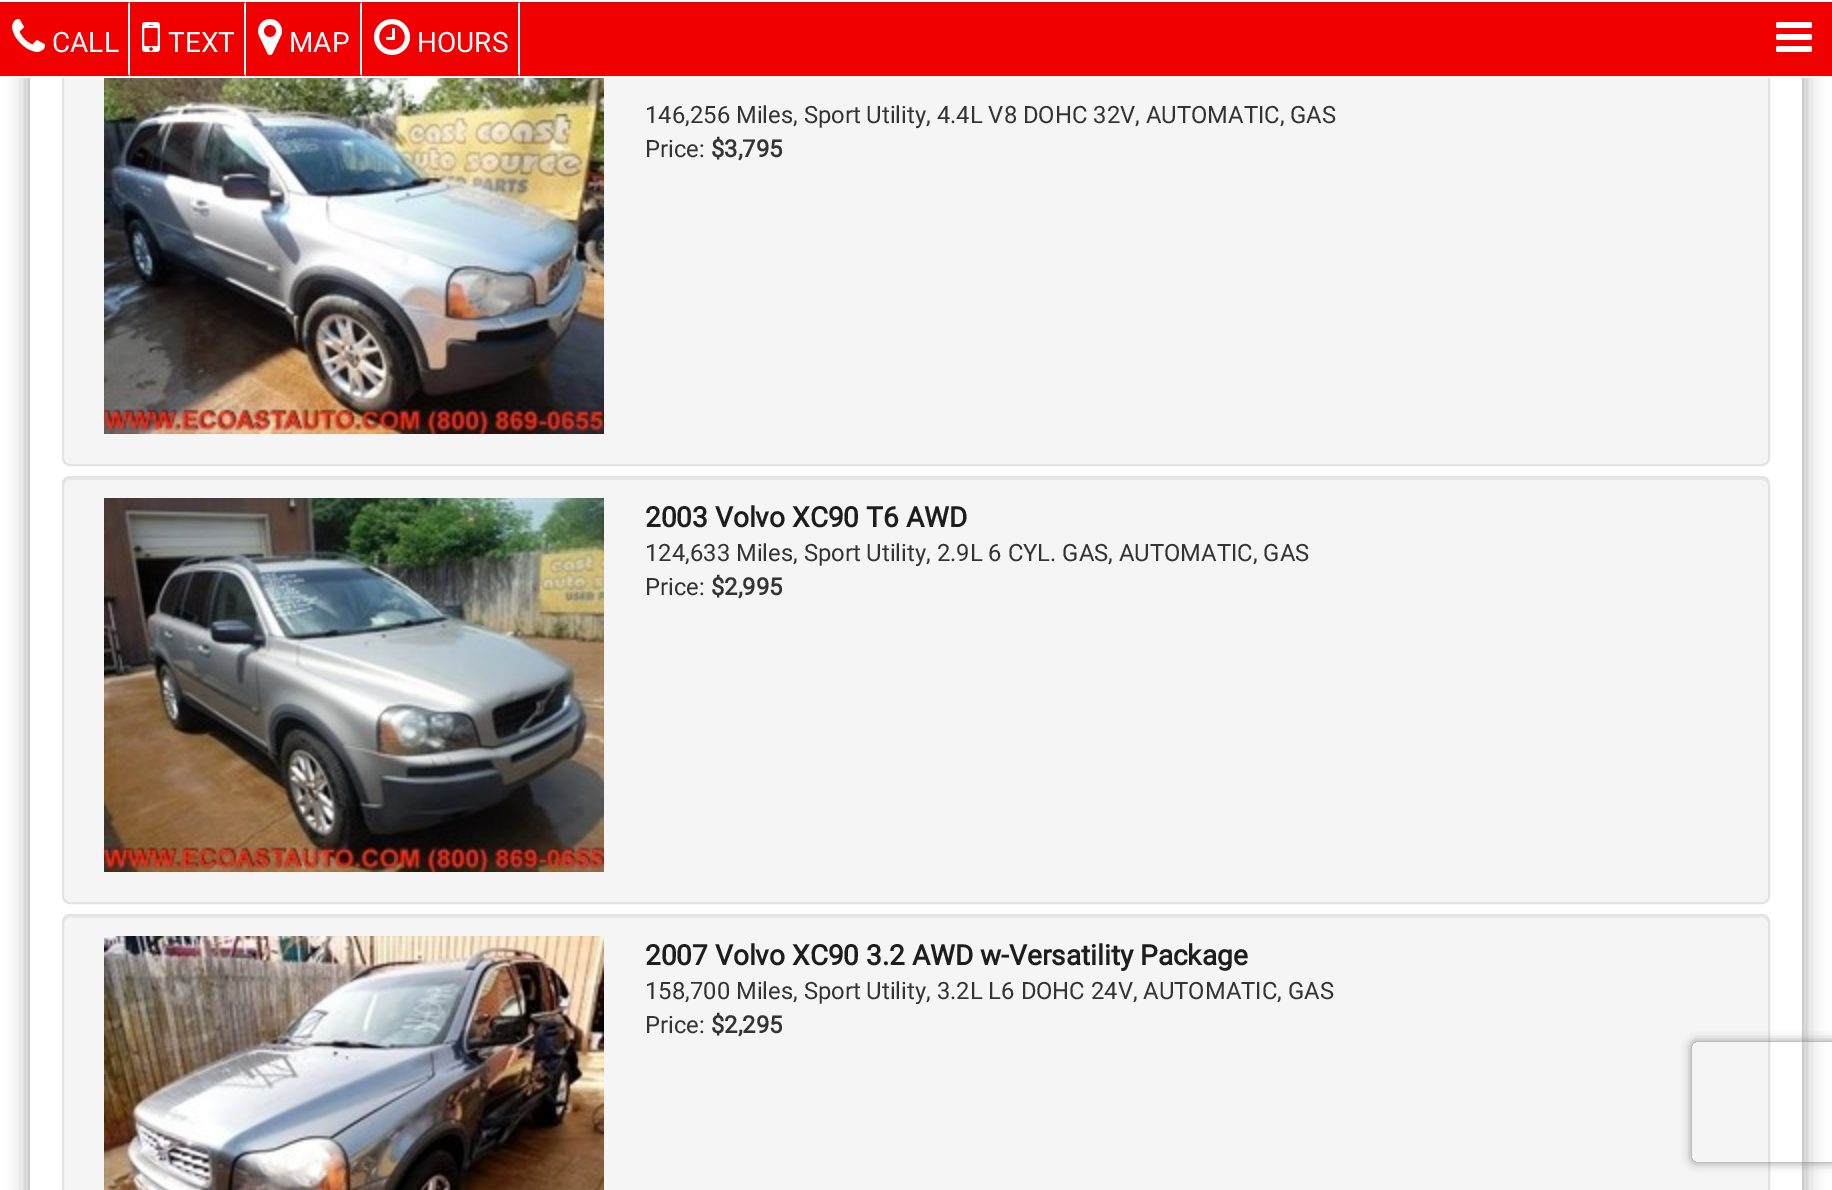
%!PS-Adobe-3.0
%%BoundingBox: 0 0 1832 1190
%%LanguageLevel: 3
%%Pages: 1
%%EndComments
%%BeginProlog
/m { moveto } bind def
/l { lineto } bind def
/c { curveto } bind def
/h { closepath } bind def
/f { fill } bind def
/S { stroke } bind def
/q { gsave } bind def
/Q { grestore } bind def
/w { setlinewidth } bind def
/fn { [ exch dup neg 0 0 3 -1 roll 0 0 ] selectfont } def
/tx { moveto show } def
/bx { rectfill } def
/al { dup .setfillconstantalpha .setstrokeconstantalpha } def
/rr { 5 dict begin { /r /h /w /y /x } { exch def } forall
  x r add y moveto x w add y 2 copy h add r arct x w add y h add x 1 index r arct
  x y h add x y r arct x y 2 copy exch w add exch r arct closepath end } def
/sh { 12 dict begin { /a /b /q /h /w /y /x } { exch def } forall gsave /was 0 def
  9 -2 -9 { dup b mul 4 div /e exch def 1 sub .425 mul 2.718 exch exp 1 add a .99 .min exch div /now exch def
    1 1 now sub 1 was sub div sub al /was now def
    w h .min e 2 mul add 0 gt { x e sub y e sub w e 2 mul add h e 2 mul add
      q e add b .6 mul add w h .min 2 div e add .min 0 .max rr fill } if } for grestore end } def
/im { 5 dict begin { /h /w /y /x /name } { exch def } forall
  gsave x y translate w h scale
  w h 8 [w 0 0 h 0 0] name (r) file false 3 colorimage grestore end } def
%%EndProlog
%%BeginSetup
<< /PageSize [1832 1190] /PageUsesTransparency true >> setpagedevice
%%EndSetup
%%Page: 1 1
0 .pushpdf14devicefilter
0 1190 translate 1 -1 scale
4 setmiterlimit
1 setgray
0 0 1832 1190 bx
q
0 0 m 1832 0 l 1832 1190 l 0 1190 l h 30 -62 m 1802 -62 l 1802 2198 l 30 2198 l h eoclip newpath
0 setgray
26 -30 1780 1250 0 10 0.3 sh
Q
0.961 setgray
63 39 1706 426 7 rr q f Q
0.89 setgray
2 w
S
0.941 0 0 setrgbcolor
0 2 1832 74 bx
1 setgray
0 0 1832 2 bx
0 76 1832 2 bx
130 2 m 130 76 l 128 74 l 128 4 l h f
(image0.raw) 12 19 33 33 im
/Roboto-Regular 28 fn
(CALL) 52 52 tx
246 2 m 246 76 l 244 74 l 244 4 l h f
(image1.raw) 142 22 18 30 im
(TEXT) 168 52 tx
362 2 m 362 76 l 360 74 l 360 4 l h f
(image2.raw) 258 19 24 36 im
(MAP) 289 52 tx
520 2 m 520 76 l 518 74 l 518 4 l h f
(image3.raw) 374 19 36 36 im
(HOURS) 417 52 tx
(image4.raw) 1776 22 36 30 im
(image5.raw) 104 78 500 356 im
/Roboto-Regular 23.8 fn
0.2 setgray
(146,256 Miles, Sport Utility, 4.4L V8 DOHC 32V, AUTOMATIC, GAS) 645 123 tx
(Price:) 645 157 tx
/Roboto-Bold 23.8 fn
($3,795) 711 157 tx
0.961 setgray
62 476 1708 428 8 rr f
0.914 setgray
70 480 m 1762 480 l 1765 480 1768 483 1768 486 c 1768 482 1767 478 1762 478 c 70 478 l 65 478 64 482 64 486 c 64 483 67 480 70 480 c h f
0.89 setgray
63 477 1706 426 7 rr S
(image6.raw) 104 498 500 374 im
/Roboto-Bold 28 fn
0.114 setgray
(2003 Volvo XC90 T6 AWD) 645 527 tx
/Roboto-Regular 23.8 fn
0.2 setgray
(124,633 Miles, Sport Utility, 2.9L 6 CYL. GAS, AUTOMATIC, GAS) 645 561 tx
(Price:) 645 595 tx
/Roboto-Bold 23.8 fn
($2,995) 711 595 tx
0.961 setgray
62 914 1708 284 8 rr f
0.914 setgray
70 918 m 1762 918 l 1765 918 1768 921 1768 924 c 1768 920 1767 916 1762 916 c 70 916 l 65 916 64 920 64 924 c 64 921 67 918 70 918 c h f
0.89 setgray
63 915 1706 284 7 rr S
(image7.raw) 104 936 500 254 im
/Roboto-Bold 28 fn
0.114 setgray
(2007 Volvo XC90 3.2 AWD w-Versatility Package) 645 965 tx
/Roboto-Regular 23.8 fn
0.2 setgray
(158,700 Miles, Sport Utility, 3.2L L6 DOHC 24V, AUTOMATIC, GAS) 645 999 tx
(Price:) 645 1033 tx
/Roboto-Bold 23.8 fn
($2,295) 711 1033 tx
q
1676 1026 m 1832 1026 l 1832 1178 l 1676 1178 l h 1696 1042 m 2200 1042 l 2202 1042 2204 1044 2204 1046 c 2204 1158 l 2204 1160 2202 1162 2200 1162 c 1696 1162 l 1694 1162 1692 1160 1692 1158 c 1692 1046 l 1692 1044 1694 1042 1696 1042 c h eoclip newpath
0.502 setgray
1692 1042 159 120 4 5 1 sh
Q
.poppdf14devicefilter showpage
%%EOF
